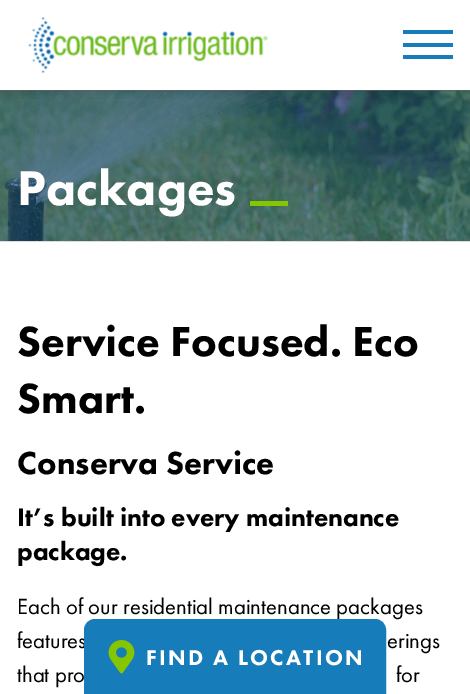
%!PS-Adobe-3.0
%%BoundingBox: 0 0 470 694
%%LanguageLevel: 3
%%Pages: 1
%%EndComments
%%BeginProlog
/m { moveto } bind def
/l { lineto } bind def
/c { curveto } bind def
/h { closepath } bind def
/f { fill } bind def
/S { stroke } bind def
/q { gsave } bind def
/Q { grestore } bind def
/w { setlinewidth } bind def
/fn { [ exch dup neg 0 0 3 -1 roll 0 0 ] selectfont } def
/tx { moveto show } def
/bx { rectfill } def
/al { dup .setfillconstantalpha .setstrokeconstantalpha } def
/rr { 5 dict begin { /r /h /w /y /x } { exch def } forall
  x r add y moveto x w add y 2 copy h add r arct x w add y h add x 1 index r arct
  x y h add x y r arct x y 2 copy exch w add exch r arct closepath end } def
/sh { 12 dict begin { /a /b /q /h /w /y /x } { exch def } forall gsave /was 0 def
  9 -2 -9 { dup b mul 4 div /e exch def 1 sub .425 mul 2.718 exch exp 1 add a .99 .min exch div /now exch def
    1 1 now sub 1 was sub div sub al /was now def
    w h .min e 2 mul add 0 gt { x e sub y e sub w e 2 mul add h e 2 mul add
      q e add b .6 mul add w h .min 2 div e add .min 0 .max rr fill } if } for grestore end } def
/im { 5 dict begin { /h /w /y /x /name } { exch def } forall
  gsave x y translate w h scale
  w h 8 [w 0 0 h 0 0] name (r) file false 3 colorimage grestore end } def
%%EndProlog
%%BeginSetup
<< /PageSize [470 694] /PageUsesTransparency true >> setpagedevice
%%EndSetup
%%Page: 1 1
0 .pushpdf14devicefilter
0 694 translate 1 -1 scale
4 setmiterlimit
1 setgray
0 0 470 694 bx
(image1.raw) 0 90 470 152 im
q
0 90 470 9 rectclip
0 setgray
0 0 470 90 0 7 0.2 sh
Q
(image0.raw) 28 17 240 56 im
0.09 0.486 0.729 setrgbcolor
403 30 50 4 bx
403 43 50 4 bx
403 55 50 4 bx
/FuturaPT-Black 50.5 fn
1 setgray
(Packages) 17 205 tx
0.522 0.776 0 setrgbcolor
250 201 38 5 bx
/FuturaPT-Black 43.6 fn
0 setgray
(Service Focused. Eco) 17 356 tx
(Smart.) 17 413 tx
/FuturaPT-Black 33 fn
(Conserva Service) 17 474 tx
/FuturaPT-Black 26.25 fn
(It’s built into every maintenance) 17 526 tx
(package.) 17 560 tx
/FuturaPT-Regular 22.7 fn
(Each of our residential maintenance packages) 17 614 tx
(features) 17 648 tx
(erings) 387 648 tx
(that pro) 17 682 tx
(for) 396 682 tx
0.09 0.486 0.729 setrgbcolor
95 621 m 375 621 l 380 621 384 625 384 630 c 384 693 l 86 693 l 86 630 l 86 625 90 621 95 621 c h q f Q
4 w
S
(image2.raw) 108 640 27 34 im
/FuturaPT-Black 22.25 fn
1 setgray
146 665 m 2.25 0 (FIND A LOCATION) ashow
.poppdf14devicefilter showpage
%%EOF
